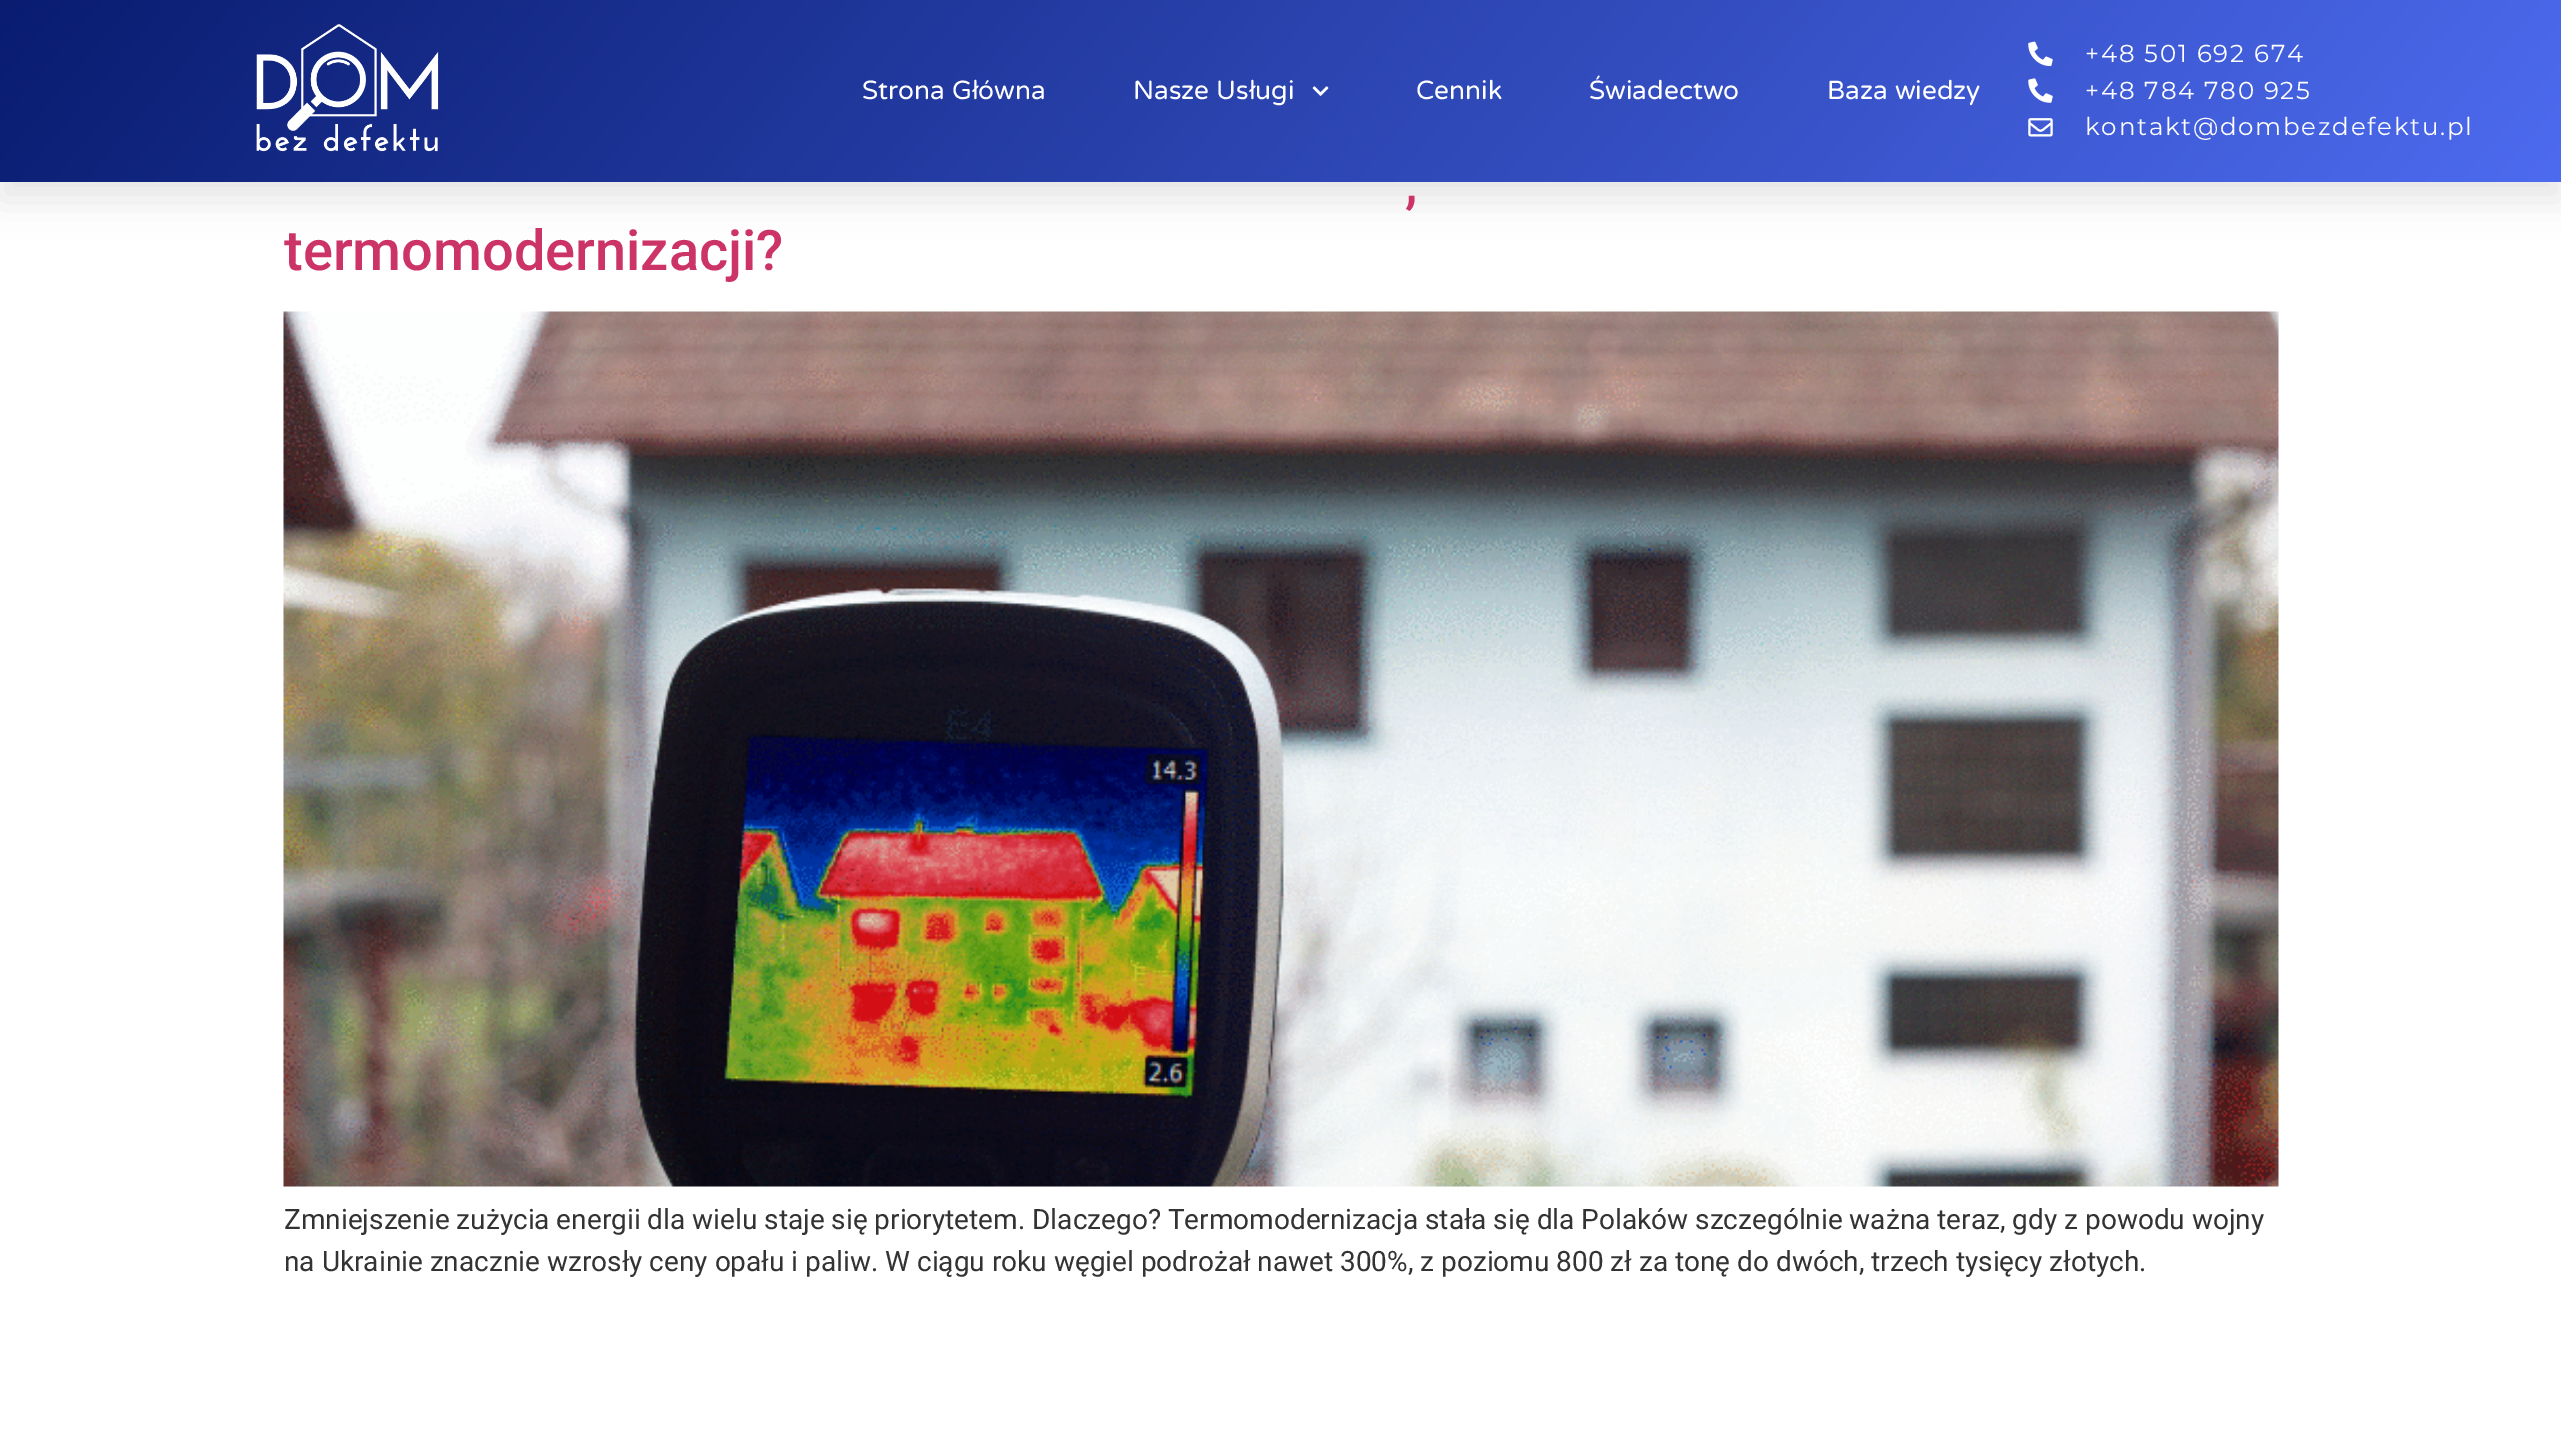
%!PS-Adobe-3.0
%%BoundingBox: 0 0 2561 1429
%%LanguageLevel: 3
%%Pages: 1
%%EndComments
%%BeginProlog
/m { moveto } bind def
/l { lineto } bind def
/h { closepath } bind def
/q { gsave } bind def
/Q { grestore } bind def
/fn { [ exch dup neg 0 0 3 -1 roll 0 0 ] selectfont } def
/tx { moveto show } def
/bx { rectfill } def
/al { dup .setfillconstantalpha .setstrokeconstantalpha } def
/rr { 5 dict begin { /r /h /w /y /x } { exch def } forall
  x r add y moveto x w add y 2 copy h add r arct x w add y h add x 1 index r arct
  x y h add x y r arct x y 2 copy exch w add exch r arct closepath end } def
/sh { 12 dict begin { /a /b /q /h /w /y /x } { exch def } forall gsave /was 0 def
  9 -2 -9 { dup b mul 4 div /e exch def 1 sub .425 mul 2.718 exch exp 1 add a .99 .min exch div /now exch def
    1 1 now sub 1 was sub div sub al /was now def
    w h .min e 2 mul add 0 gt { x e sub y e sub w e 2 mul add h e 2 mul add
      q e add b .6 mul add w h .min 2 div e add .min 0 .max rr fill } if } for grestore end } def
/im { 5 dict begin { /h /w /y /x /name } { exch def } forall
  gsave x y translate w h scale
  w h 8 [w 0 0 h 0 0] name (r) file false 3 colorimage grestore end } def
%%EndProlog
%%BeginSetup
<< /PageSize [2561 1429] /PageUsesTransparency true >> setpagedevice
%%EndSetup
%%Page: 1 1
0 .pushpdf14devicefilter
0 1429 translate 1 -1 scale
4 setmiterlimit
1 setgray
0 0 2561 1429 bx
0 setgray
0 18 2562 182 0 17.5 0.1 sh
q 0 0 m 2561 0 l 2561 182 l 0 182 l h clip newpath
<< /ShadingType 2 /ColorSpace /DeviceRGB /Coords [484 -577 2078 759] /Extend [true true] /Function << /FunctionType 2 /Domain [0 1] /C0 [0.035 0.11 0.439] /C1 [0.302 0.42 0.937] /N 1 >> >> shfill Q
(image0.raw) 256 24 183 128 im
/VarelaRound-Regular 26.25 fn
1 setgray
(Strona Główna) 862 99 tx
(Nasze Usługi) 1133 99 tx
(image1.raw) 1312 86 17 10 im
(Cennik) 1416 99 tx
(Świadectwo) 1589 99 tx
(Baza wiedzy) 1827 99 tx
(image2.raw) 2028 41 25 26 im
/Montserrat-Regular 24.5 fn
2085 62 m 1.75 0 (+48 501 692 674) ashow
(image3.raw) 2028 78 25 25 im
2085 99 m 1.75 0 (+48 784 780 925) ashow
(image4.raw) 2028 118 25 19 im
2085 135 m 1.75 0 (kontakt@dombezdefektu.pl) ashow
/Roboto-Medium 56 fn
0.8 0.2 0.4 setrgbcolor
(,) 1405 202 tx
(termomodernizacji?) 284 270 tx
(image5.raw) 283 311 1996 876 im
/Roboto-Regular 28 fn
0.2 setgray
(Zmniejszenie zużycia energii dla wielu staje się priorytetem. Dlaczego? Termomodernizacja stała się dla Polaków szczególnie ważna teraz, gdy z powodu wojny) 284 1229 tx
(na Ukrainie znacznie wzrosły ceny opału i paliw. W ciągu roku węgiel podrożał nawet 300%, z poziomu 800 zł za tonę do dwóch, trzech tysięcy złotych.) 284 1271 tx
.poppdf14devicefilter showpage
%%EOF
